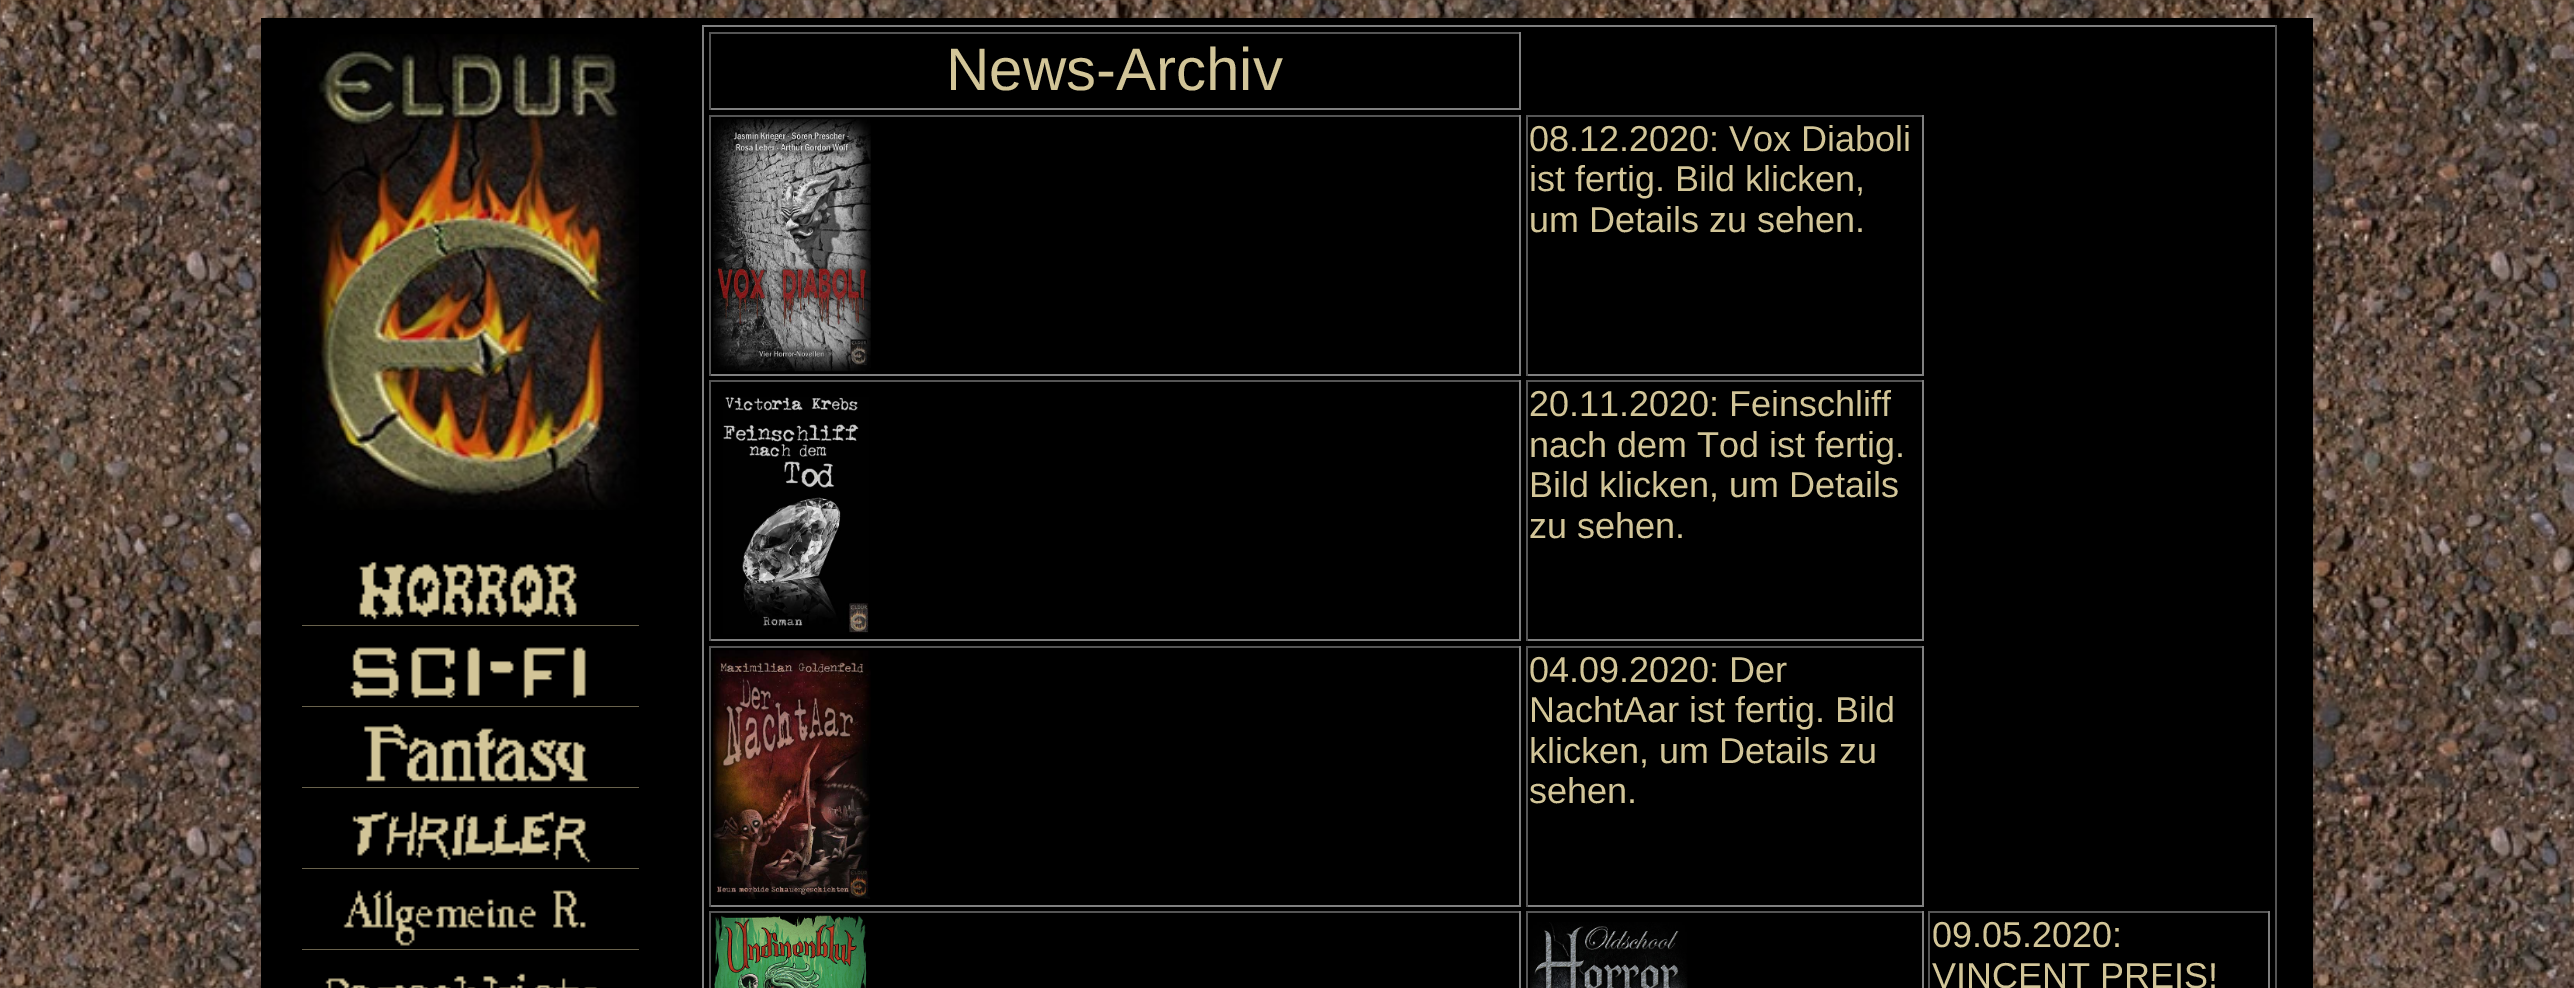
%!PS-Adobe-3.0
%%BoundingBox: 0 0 2574 988
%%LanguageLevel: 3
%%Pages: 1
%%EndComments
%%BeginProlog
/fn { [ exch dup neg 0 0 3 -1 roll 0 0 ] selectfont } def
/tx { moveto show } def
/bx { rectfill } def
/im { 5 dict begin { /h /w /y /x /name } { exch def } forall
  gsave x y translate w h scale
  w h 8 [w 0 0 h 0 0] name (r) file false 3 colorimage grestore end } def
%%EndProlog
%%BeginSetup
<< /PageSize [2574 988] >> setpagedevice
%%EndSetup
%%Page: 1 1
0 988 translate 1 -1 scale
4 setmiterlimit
1 setgray
0 0 2574 988 bx
(image0.raw) 0 0 2574 988 im
0 setgray
261 18 2052 970 bx
(image1.raw) 302 34 337 476 im
0.824 0.773 0.596 setrgbcolor
302 562 337 64 bx
(image2.raw) 302 558 337 68 im
302 647 337 60 bx
(image3.raw) 302 639 337 68 im
302 724 337 64 bx
(image4.raw) 302 720 337 68 im
302 811 337 58 bx
(image5.raw) 302 801 337 68 im
302 890 337 60 bx
(image6.raw) 302 882 337 68 im
325 973 272 15 bx
(image7.raw) 302 963 337 25 im
0.502 setgray
702 25 1575 2 bx
0.333 setgray
2275 25 2 963 bx
0.502 setgray
702 25 2 963 bx
0.333 setgray
709 32 812 2 bx
0.502 setgray
1519 32 2 78 bx
709 108 812 2 bx
0.333 setgray
709 32 2 78 bx
/LiberationSans-Regular 60 fn
0.824 0.773 0.596 setrgbcolor
(News-Archiv) 946 90 tx
0.333 setgray
709 115 812 2 bx
0.502 setgray
1519 115 2 261 bx
709 374 812 2 bx
0.333 setgray
709 115 2 261 bx
(image8.raw) 713 119 158 253 im
1526 115 398 2 bx
0.502 setgray
1922 115 2 261 bx
1526 374 398 2 bx
0.333 setgray
1526 115 2 261 bx
/LiberationSans-Regular 36 fn
0.824 0.773 0.596 setrgbcolor
(08.12.2020: Vox Diaboli) 1529 151 tx
(ist fertig. Bild klicken,) 1529 191 tx
(um Details zu sehen.) 1529 232 tx
0.333 setgray
709 380 812 2 bx
0.502 setgray
1519 380 2 261 bx
709 639 812 2 bx
0.333 setgray
709 380 2 261 bx
(image9.raw) 723 397 146 237 im
1526 380 398 2 bx
0.502 setgray
1922 380 2 261 bx
1526 639 398 2 bx
0.333 setgray
1526 380 2 261 bx
0.824 0.773 0.596 setrgbcolor
(20.11.2020: Feinschliff) 1529 416 tx
(nach dem Tod ist fertig.) 1529 457 tx
(Bild klicken, um Details) 1529 497 tx
(zu sehen.) 1529 538 tx
0.333 setgray
709 646 812 2 bx
0.502 setgray
1519 646 2 261 bx
709 905 812 2 bx
0.333 setgray
709 646 2 261 bx
(image10.raw) 713 650 158 249 im
1526 646 398 2 bx
0.502 setgray
1922 646 2 261 bx
1526 905 398 2 bx
0.333 setgray
1526 646 2 261 bx
0.824 0.773 0.596 setrgbcolor
(04.09.2020: Der) 1529 682 tx
(NachtAar ist fertig. Bild) 1529 722 tx
(klicken, um Details zu) 1529 763 tx
(sehen.) 1529 803 tx
0.333 setgray
709 911 812 2 bx
0.502 setgray
1519 911 2 77 bx
0.333 setgray
709 911 2 77 bx
(image11.raw) 714 915 153 73 im
1526 911 398 2 bx
0.502 setgray
1922 911 2 77 bx
0.333 setgray
1526 911 2 77 bx
(image12.raw) 1530 922 158 66 im
1928 911 342 2 bx
0.502 setgray
2268 911 2 77 bx
0.333 setgray
1928 911 2 77 bx
0.824 0.773 0.596 setrgbcolor
(09.05.2020:) 1932 947 tx
(VINCENT PREIS!) 1932 988 tx
showpage
%%EOF
